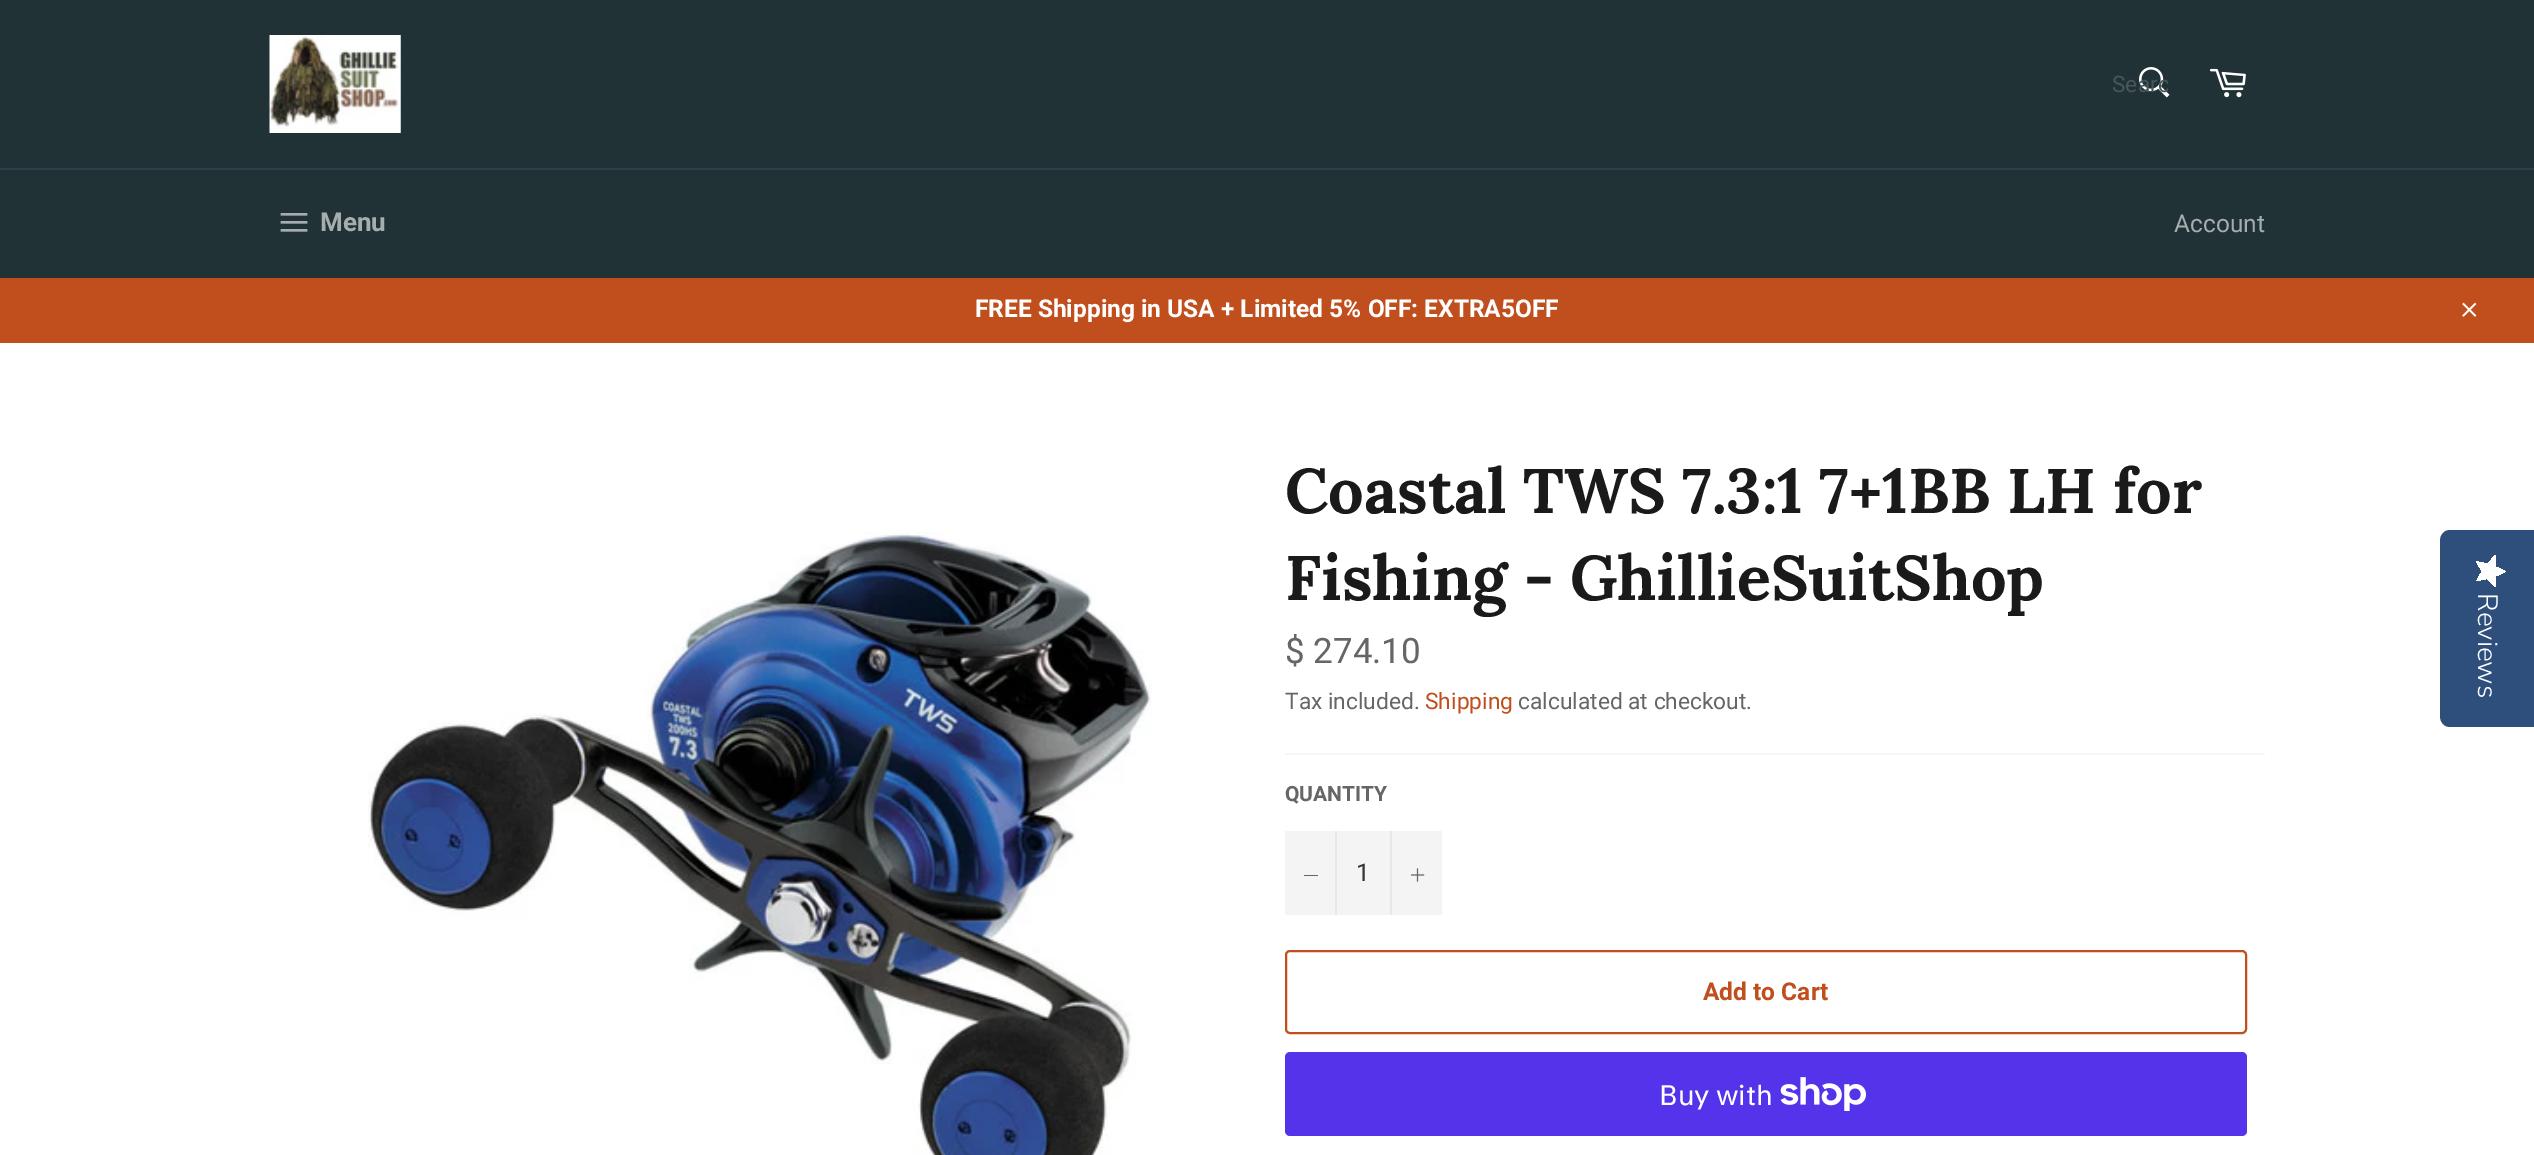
%!PS-Adobe-3.0
%%BoundingBox: 0 0 2534 1155
%%LanguageLevel: 3
%%Pages: 1
%%EndComments
%%BeginProlog
/m { moveto } bind def
/l { lineto } bind def
/c { curveto } bind def
/h { closepath } bind def
/f { fill } bind def
/S { stroke } bind def
/q { gsave } bind def
/Q { grestore } bind def
/w { setlinewidth } bind def
/fn { [ exch dup neg 0 0 3 -1 roll 0 0 ] selectfont } def
/tx { moveto show } def
/bx { rectfill } def
/rr { 5 dict begin { /r /h /w /y /x } { exch def } forall
  x r add y moveto x w add y 2 copy h add r arct x w add y h add x 1 index r arct
  x y h add x y r arct x y 2 copy exch w add exch r arct closepath end } def
/im { 5 dict begin { /h /w /y /x /name } { exch def } forall
  gsave x y translate w h scale
  w h 8 [w 0 0 h 0 0] name (r) file false 3 colorimage grestore end } def
%%EndProlog
%%BeginSetup
<< /PageSize [2534 1155] >> setpagedevice
%%EndSetup
%%Page: 1 1
0 1155 translate 1 -1 scale
4 setmiterlimit
0.129 0.196 0.212 setrgbcolor
0 0 2534 1155 bx
(image0.raw) 269 35 132 98 im
(image1.raw) 2139 67 31 31 im
q
2112 72 56 26 rectclip
/Roboto-Regular 22.75 fn
0.282 0.337 0.349 setrgbcolor
(Searc) 2112 92 tx
Q
(image2.raw) 2209 68 37 30 im
0.169 0.255 0.275 setrgbcolor
0 168 2534 2 bx
(image3.raw) 280 213 28 19 im
/Roboto-Bold 26 fn
0.651 0.678 0.686 setrgbcolor
(Menu) 320 231 tx
/Roboto-Regular 24.5 fn
(Account) 2174 232 tx
0.753 0.31 0.114 setrgbcolor
0 278 2534 65 bx
/Roboto-Bold 24.5 fn
1 setgray
(FREE Shipping in USA + Limited 5% OFF: EXTRA5OFF) 975 317 tx
(image4.raw) 2462 302 15 15 im
0 343 2534 812 bx
(image5.raw) 368 532 784 623 im
/Lora-Bold 63 fn
0.102 setgray
(Coastal TWS 7.3:1 7+1BB LH for) 1285 513 tx
(Fishing - GhillieSuitShop) 1285 600 tx
/Roboto-Regular 35 fn
0.4 setgray
($ 274.10) 1285 663 tx
/Roboto-Regular 22.75 fn
(Tax included.) 1285 709 tx
0.753 0.31 0.114 setrgbcolor
(Shipping) 1425 709 tx
0.4 setgray
(calculated at checkout.) 1518 709 tx
0.969 setgray
1285 753 980 2 bx
/Roboto-Bold 21 fn
0.4 setgray
(QUANTITY) 1285 801 tx
0.957 setgray
1285 831 157 84 bx
0.906 setgray
1335 831 2 84 bx
0.4 setgray
1304 875 14 1 bx
/Roboto-Regular 24.5 fn
0.2 setgray
(1) 1356 881 tx
0.906 setgray
1390 831 2 84 bx
(image6.raw) 1411 868 14 14 im
0.753 0.31 0.114 setrgbcolor
2 w
1286 951 960 82 4 rr S
/Roboto-Bold 24.5 fn
(Add to Cart) 1703 1000 tx
0.329 0.2 0.922 setrgbcolor
1285 1052 962 84 5 rr f
/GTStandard-Regular 28 fn
1 setgray
(Buy with) 1659 1105 tx
(image7.raw) 1780 1077 86 34 im
0.18 0.31 0.486 setrgbcolor
2534 530 m 2534 727 l 2450 727 l 2444 727 2440 722 2440 716 c 2440 541 l 2440 535 2444 530 2450 530 c h f
q 2482 571.5 m 2476.5 581 l 2487.5 578.5 l 2495 587 l 2496 576 l 2506 571.5 l 2496 567 l 2495 555.5 l 2487.5 564 l 2476.5 561.5 l h clip newpath
<< /ShadingType 2 /ColorSpace /DeviceRGB /Coords [2506 556 2506 587] /Extend [true true] /Function << /FunctionType 2 /Domain [0 1] /C0 [1 1 1] /C1 [1 1 1] /N 1 >> >> shfill Q
/NunitoSans-Light 28 fn
1 setgray
q 2478 593 translate 90 rotate 0 0 m (Reviews) show Q
showpage
%%EOF
